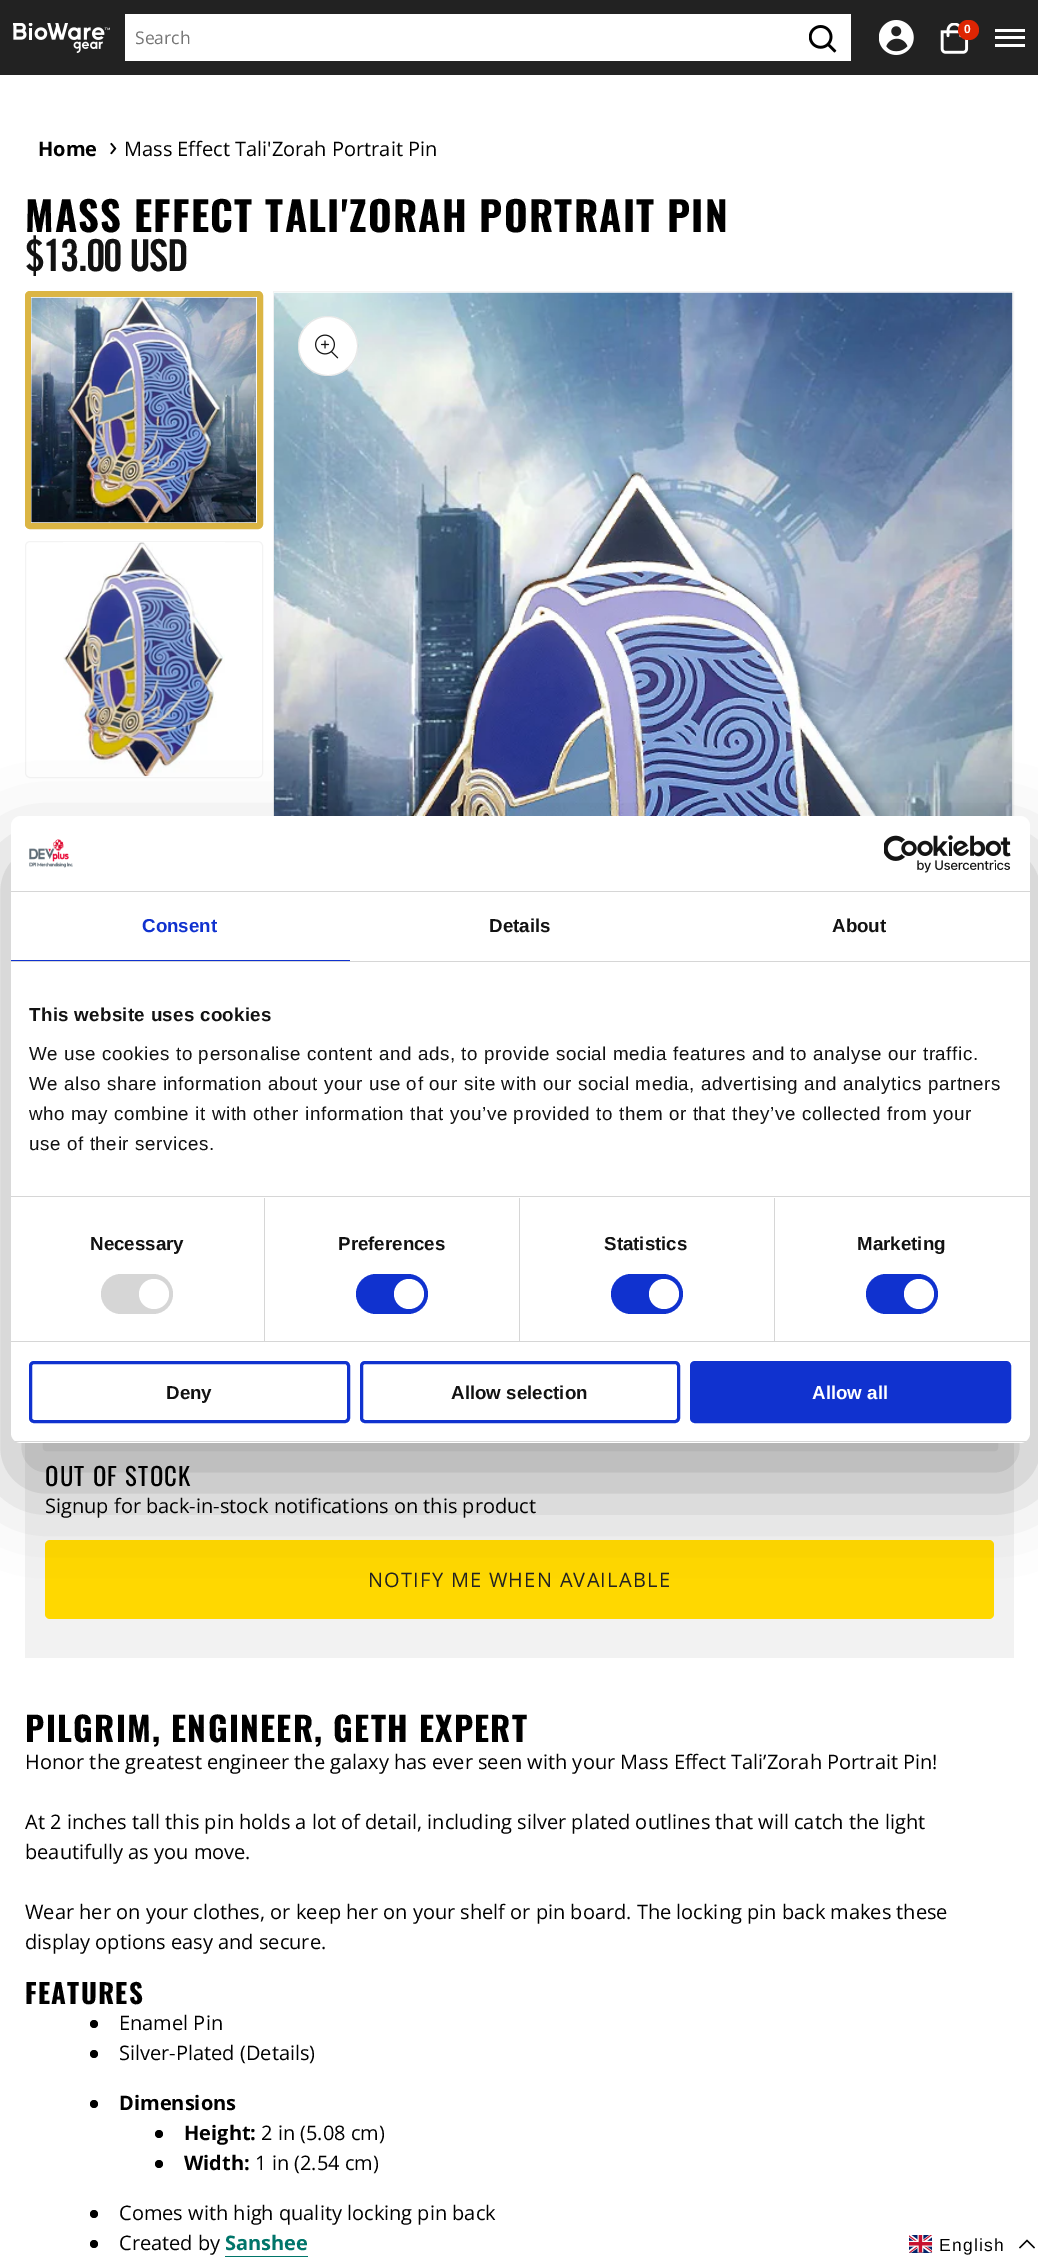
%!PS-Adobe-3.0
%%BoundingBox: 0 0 1038 2258
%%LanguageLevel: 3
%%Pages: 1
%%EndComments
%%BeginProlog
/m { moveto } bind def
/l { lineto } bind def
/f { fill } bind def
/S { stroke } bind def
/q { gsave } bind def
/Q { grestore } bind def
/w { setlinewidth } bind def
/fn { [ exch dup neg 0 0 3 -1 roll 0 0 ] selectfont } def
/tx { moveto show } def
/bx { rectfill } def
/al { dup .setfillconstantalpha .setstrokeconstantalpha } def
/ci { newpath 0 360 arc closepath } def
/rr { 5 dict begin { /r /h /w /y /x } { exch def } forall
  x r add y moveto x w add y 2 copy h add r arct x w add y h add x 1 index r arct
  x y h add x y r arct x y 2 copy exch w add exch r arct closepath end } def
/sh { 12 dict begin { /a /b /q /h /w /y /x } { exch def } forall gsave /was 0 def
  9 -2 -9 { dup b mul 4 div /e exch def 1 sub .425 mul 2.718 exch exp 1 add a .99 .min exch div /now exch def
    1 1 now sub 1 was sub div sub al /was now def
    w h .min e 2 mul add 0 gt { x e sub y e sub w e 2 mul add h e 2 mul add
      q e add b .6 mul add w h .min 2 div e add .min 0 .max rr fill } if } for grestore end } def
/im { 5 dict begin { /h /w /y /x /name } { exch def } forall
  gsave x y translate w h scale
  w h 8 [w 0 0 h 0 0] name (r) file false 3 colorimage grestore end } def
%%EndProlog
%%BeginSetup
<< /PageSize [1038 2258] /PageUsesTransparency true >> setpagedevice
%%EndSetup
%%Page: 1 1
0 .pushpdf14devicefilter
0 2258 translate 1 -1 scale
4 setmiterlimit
1 setgray
0 0 1038 2258 bx
0.133 setgray
0 0 1038 75 bx
(image0.raw) 13 23 97 30 im
1 setgray
125 14 726 47 bx
/OpenSans-Regular 17.5 fn
0.459 setgray
(Search) 135 44 tx
(image1.raw) 809 25 28 28 im
(image2.raw) 879 20 35 35 im
(image3.raw) 940 23 29 31 im
0.867 0.145 0.012 setrgbcolor
958 20 21 20 10 rr f
/LiberationSans-Bold 12 fn
1 setgray
964 33 m 1.25 0 (0) ashow
995 29 30 3 bx
995 36 30 3 bx
995 44 30 3 bx
/OpenSans-Bold 20 fn
0 setgray
(Home) 38 156 tx
/OpenSans-Regular 28 fn
(›) 109 156 tx
/OpenSans-Regular 20 fn
(Mass Effect Tali'Zorah Portrait Pin) 124 156 tx
/Oswald-Bold 40.5 fn
25 232 m 1.25 0 (MASS EFFECT TALI'ZORAH PORTRAIT PIN) ashow
/TradeGothic-Bold 44 fn
0.071 setgray
25 271 m -1.9 0 ($13.00 USD) ashow
0.859 0.71 0.267 setrgbcolor
6 w
28 294 232 232 2 rr S
(image4.raw) 31 297 226 226 im
0.953 setgray
1 w
25.5 541.5 237 236 4.5 rr S
(image5.raw) 63 542 162 235 im
273.5 291.5 740 1111 rectstroke
(image6.raw) 273 292 740 524 im
1 setgray
328 346 30 ci f
0.1 al
0.071 setgray
328 346 29.5 ci S
1 al
(image7.raw) 315 334 24 25 im
0.949 setgray
25 1443 989 215 bx
/Oswald-Regular 24.75 fn
0 setgray
45 1486 m 1.25 0 (OUT OF STOCK) ashow
/OpenSans-Regular 20 fn
(Signup for back-in-stock notifications on this product) 45 1513 tx
1 0.847 0 setrgbcolor
45 1540 949 79 5 rr f
0.133 setgray
368 1587 m 1.25 0 (NOTIFY ME WHEN AVAILABLE) ashow
/Oswald-Bold 33.75 fn
0 setgray
25 1742 m 1.25 0 (PILGRIM, ENGINEER, GETH EXPERT) ashow
/OpenSans-Regular 20 fn
(Honor the greatest engineer the galaxy has ever seen with your Mass Effect Tali’Zorah Portrait Pin!) 25 1769 tx
(At 2 inches tall this pin holds a lot of detail, including silver plated outlines that will catch the light) 25 1829 tx
(beautifully as you move.) 25 1859 tx
(Wear her on your clothes, or keep her on your shelf or pin board. The locking pin back makes these) 25 1919 tx
(display options easy and secure.) 25 1949 tx
/Oswald-Bold 27 fn
25 2004 m 1.25 0 (FEATURES) ashow
94 2024 4 ci f
/OpenSans-Regular 20 fn
(Enamel Pin) 119 2030 tx
94 2054 4 ci f
(Silver-Plated \(Details\)) 119 2060 tx
94 2104 4 ci f
/OpenSans-Bold 20 fn
(Dimensions) 119 2110 tx
159 2134 4 ci f
(Height:) 184 2140 tx
/OpenSans-Regular 20 fn
(2 in \(5.08 cm\)) 261 2140 tx
159 2164 4 ci f
/OpenSans-Bold 20 fn
(Width:) 184 2170 tx
/OpenSans-Regular 20 fn
(1 in \(2.54 cm\)) 255 2170 tx
94 2214 4 ci f
(Comes with high quality locking pin back) 119 2220 tx
94 2244 4 ci f
(Created by) 119 2250 tx
/OpenSans-Bold 20 fn
0 0.459 0.416 setrgbcolor
(Sanshee) 225 2250 tx
225 2256 83 1 bx
0 setgray
11 856 1019 627 10 42.5 0.3 sh
1 setgray
11 816 1019 627 10 rr f
0.839 setgray
11 891 1019 1 bx
(image8.raw) 29 839 44 29 im
(image9.raw) 884 835 127 38 im
11 961 1019 1 bx
0.063 0.196 0.812 setrgbcolor
11 960 339 1 bx
/LiberationSans-Bold 18.75 fn
(Consent) 142 932 tx
0.071 setgray
(Details) 489 932 tx
(About) 832 932 tx
0.839 setgray
11 1196 1019 1 bx
0.071 setgray
29 1021 m 0.3 0 (This website uses cookies) ashow
/LiberationSans-Regular 18.75 fn
29 1060 m 0.62 0 (We use cookies to personalise content and ads, to provide social media features and to analyse our traffic.) ashow
29 1090 m 0.62 0 (We also share information about your use of our site with our social media, advertising and analytics partners) ashow
29 1120 m 0.62 0 (who may combine it with other information that you’ve provided to them or that they’ve collected from your) ashow
29 1150 m 0.62 0 (use of their services.) ashow
0.839 setgray
11 1341 1019 1 bx
264 1198 1 143 bx
/LiberationSans-Bold 18.75 fn
0.071 setgray
(Necessary) 90 1250 tx
0.839 setgray
101 1274 72 40 20 rr f
1 setgray
154 1294 15 ci f
0.839 setgray
519 1198 1 143 bx
0.071 setgray
(Preferences) 338 1250 tx
0.063 0.196 0.812 setrgbcolor
356 1274 72 40 20 rr f
1 setgray
409 1294 15 ci f
0.839 setgray
774 1198 1 143 bx
0.071 setgray
(Statistics) 604 1250 tx
0.063 0.196 0.812 setrgbcolor
611 1274 72 40 20 rr f
1 setgray
664 1294 15 ci f
0.071 setgray
(Marketing) 857 1250 tx
0.063 0.196 0.812 setrgbcolor
866 1274 72 40 20 rr f
1 setgray
919 1294 15 ci f
q
11 816 1019 627 10 rr clip newpath
0.839 setgray
11 1441 1019 1 bx
Q
0.063 0.196 0.812 setrgbcolor
3 w
30.5 1362.5 318 59 3.5 rr S
0.071 setgray
(Deny) 166 1399 tx
0.063 0.196 0.812 setrgbcolor
361.5 1362.5 317 59 3.5 rr S
0.071 setgray
(Allow selection) 451 1399 tx
0.063 0.196 0.812 setrgbcolor
691.5 1362.5 318 59 3.5 rr q f Q
S
1 setgray
(Allow all) 812 1399 tx
(image10.raw) 909 2235 24 18 im
/LiberationSans-Regular 17.5 fn
0 setgray
939 2251 m 1.25 0 (English) ashow
1.2 w
1034.5 2248 m 1027 2240.5 l 1019.5 2248 l S
.poppdf14devicefilter showpage
%%EOF
